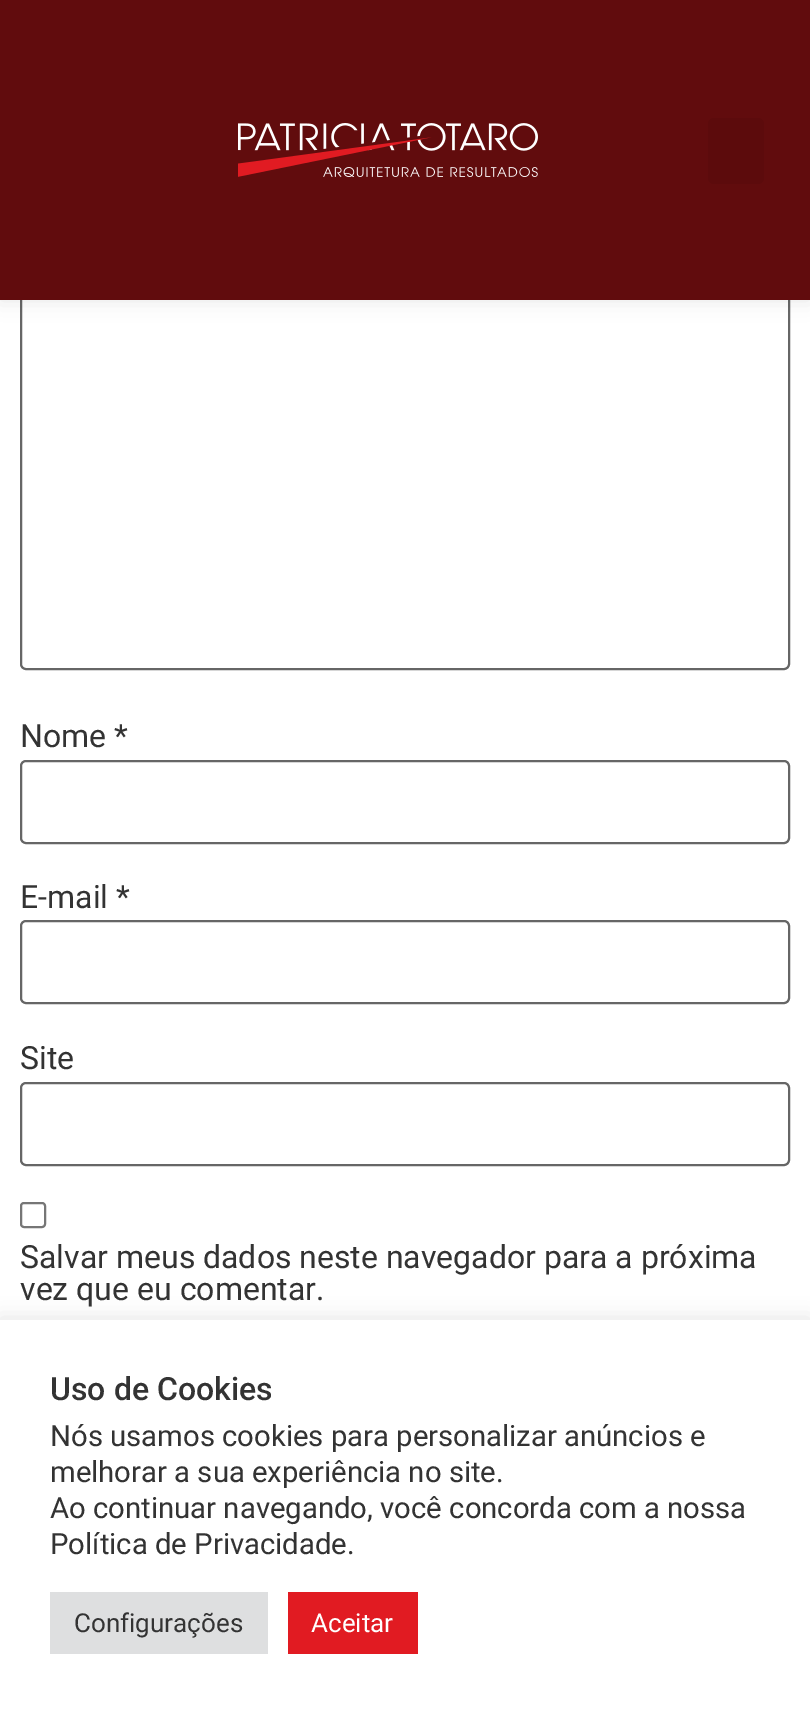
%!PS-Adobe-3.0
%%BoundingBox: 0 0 810 1713
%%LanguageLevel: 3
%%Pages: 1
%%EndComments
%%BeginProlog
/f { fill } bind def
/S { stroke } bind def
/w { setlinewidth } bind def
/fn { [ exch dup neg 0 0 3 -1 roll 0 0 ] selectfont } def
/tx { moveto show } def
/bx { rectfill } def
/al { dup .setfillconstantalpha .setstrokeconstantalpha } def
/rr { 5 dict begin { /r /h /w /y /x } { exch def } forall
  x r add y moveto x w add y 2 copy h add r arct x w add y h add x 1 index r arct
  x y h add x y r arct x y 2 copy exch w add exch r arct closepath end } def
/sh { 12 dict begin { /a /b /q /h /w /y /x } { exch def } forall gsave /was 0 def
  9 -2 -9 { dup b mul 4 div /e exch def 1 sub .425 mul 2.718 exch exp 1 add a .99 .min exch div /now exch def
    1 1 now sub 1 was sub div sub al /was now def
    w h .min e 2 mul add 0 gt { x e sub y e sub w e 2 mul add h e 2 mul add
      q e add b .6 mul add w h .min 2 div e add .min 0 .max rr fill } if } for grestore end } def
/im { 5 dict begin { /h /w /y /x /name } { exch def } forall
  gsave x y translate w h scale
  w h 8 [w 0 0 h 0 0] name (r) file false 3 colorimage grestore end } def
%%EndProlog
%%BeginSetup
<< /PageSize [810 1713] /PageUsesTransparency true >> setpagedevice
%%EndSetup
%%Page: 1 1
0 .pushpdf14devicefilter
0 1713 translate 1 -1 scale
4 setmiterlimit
1 setgray
0 0 810 1713 bx
0.4 setgray
2 w
21 251 768 418 5 rr S
0 setgray
0 0 810 300 0 10 0.1 sh
0.38 0.047 0.051 setrgbcolor
0 0 810 300 bx
(image0.raw) 238 123 300 54 im
0.361 0.043 0.047 setrgbcolor
708 118 56 66 6 rr f
/Roboto-Regular 32 fn
0.2 setgray
(Nome *) 20 747 tx
0.4 setgray
21 761 768 82 5 rr S
0.2 setgray
(E-mail *) 20 908 tx
0.4 setgray
21 921 768 82 5 rr S
0.2 setgray
(Site) 20 1069 tx
0.4 setgray
21 1083 768 82 5 rr S
0.463 setgray
21 1203 24 24 3 rr S
0.2 setgray
(Salvar meus dados neste navegador para a próxima) 20 1268 tx
(vez que eu comentar.) 20 1300 tx
0.675 0.671 0.671 setrgbcolor
0 1318 810 394 0 10 0.3 sh
1 setgray
0 1320 810 393 bx
/Roboto-Medium 32 fn
0.2 setgray
(Uso de Cookies) 50 1400 tx
/Roboto-Regular 29.3 fn
(Nós usamos cookies para personalizar anúncios e) 50 1446 tx
(melhorar a sua experiência no site.) 50 1482 tx
(Ao continuar navegando, você concorda com a nossa) 50 1518 tx
(Política de Privacidade.) 50 1554 tx
0.871 0.875 0.878 setrgbcolor
50 1592 218 62 bx
/Roboto-Regular 26 fn
0.2 setgray
(Configurações) 74 1632 tx
0.882 0.106 0.133 setrgbcolor
288 1592 130 62 bx
1 setgray
(Aceitar) 311 1632 tx
.poppdf14devicefilter showpage
%%EOF
